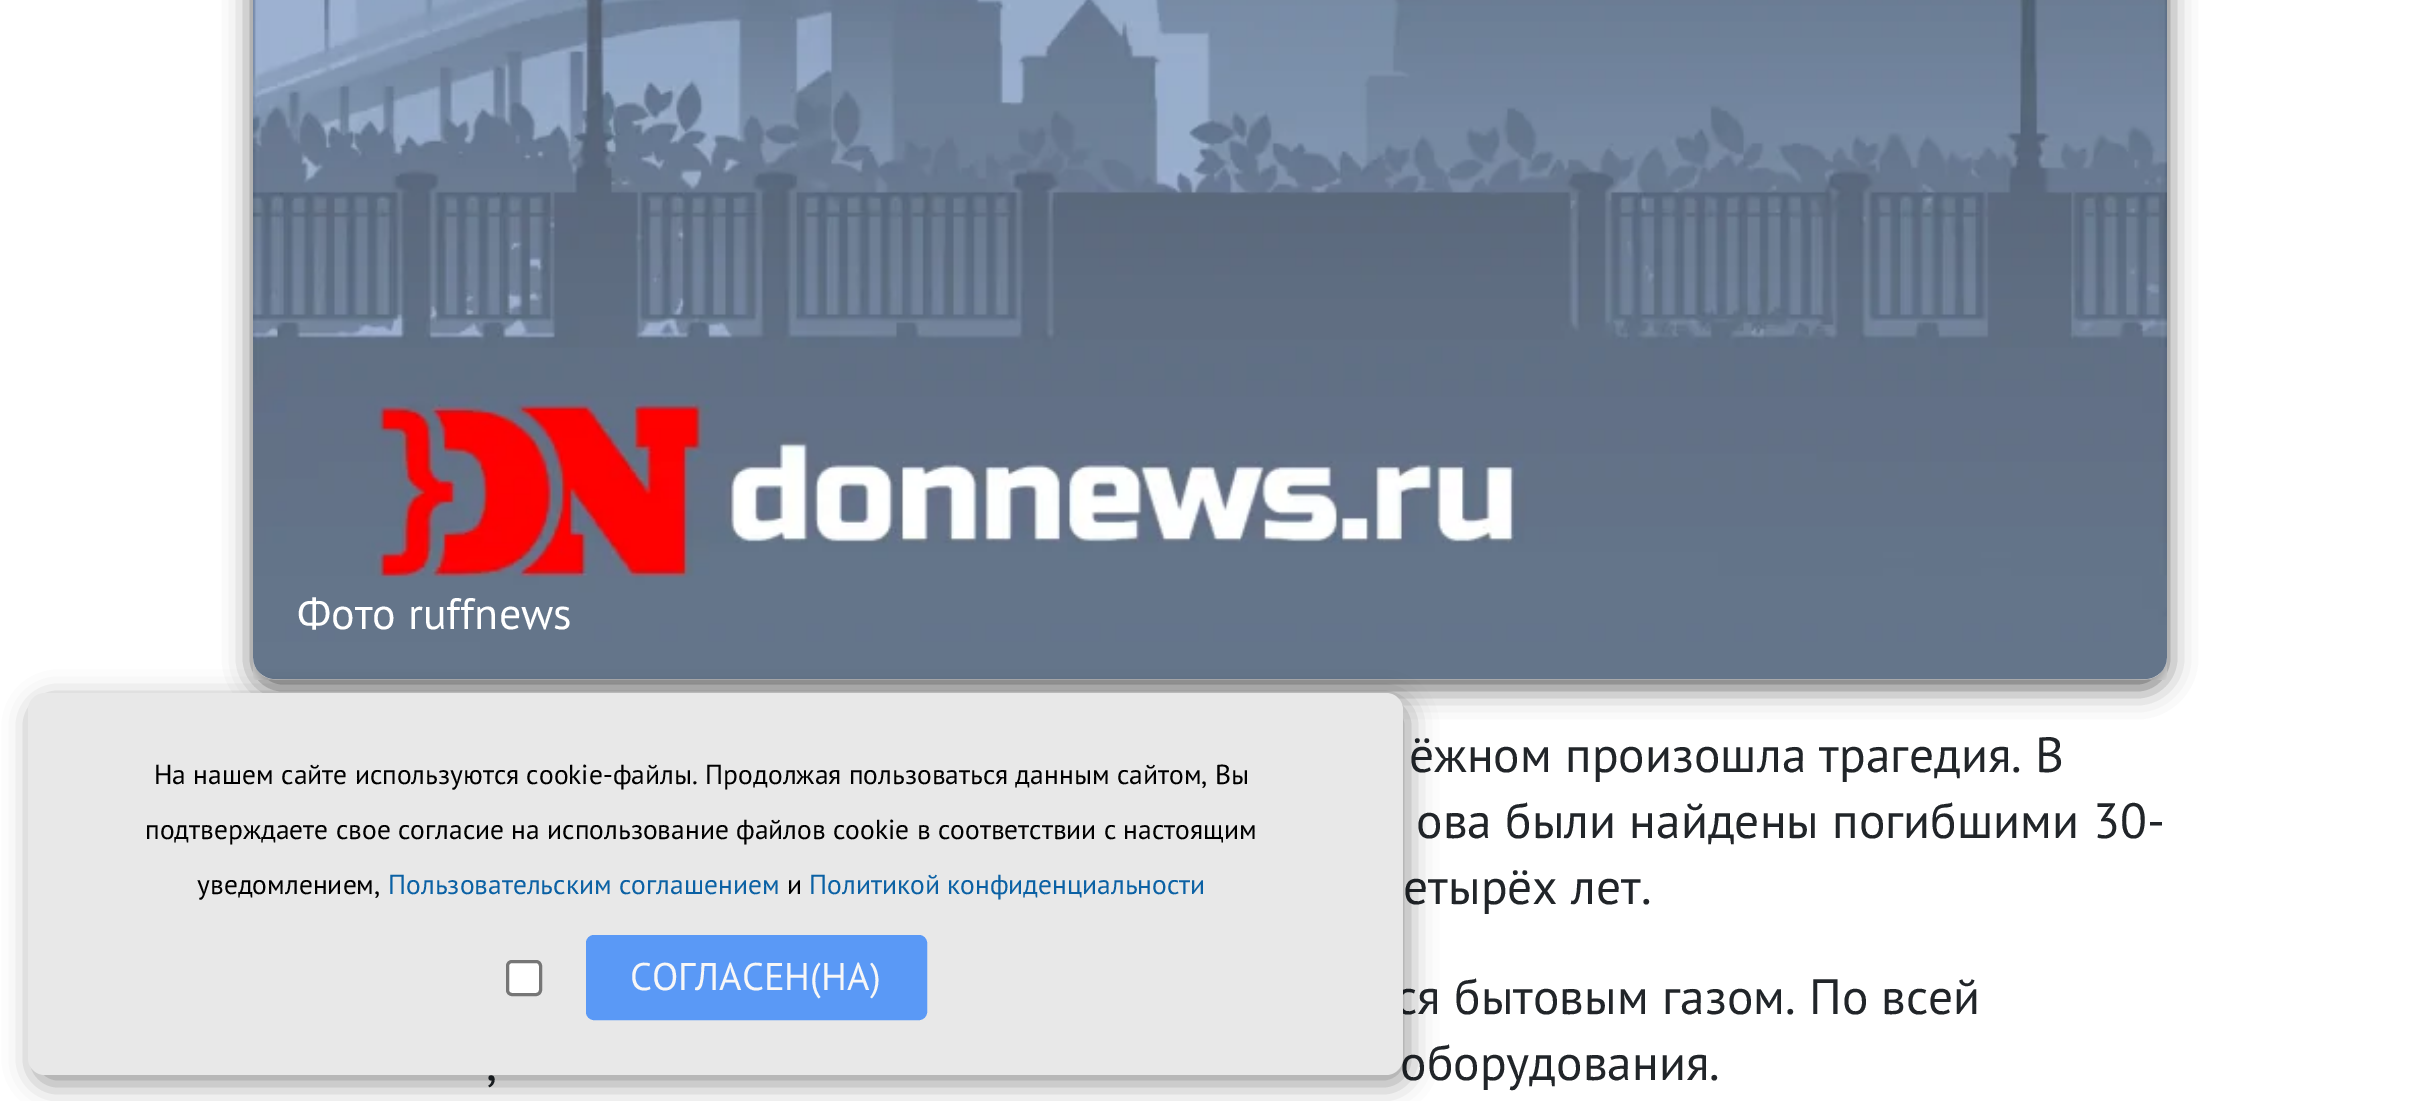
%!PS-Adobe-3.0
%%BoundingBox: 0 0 2420 1101
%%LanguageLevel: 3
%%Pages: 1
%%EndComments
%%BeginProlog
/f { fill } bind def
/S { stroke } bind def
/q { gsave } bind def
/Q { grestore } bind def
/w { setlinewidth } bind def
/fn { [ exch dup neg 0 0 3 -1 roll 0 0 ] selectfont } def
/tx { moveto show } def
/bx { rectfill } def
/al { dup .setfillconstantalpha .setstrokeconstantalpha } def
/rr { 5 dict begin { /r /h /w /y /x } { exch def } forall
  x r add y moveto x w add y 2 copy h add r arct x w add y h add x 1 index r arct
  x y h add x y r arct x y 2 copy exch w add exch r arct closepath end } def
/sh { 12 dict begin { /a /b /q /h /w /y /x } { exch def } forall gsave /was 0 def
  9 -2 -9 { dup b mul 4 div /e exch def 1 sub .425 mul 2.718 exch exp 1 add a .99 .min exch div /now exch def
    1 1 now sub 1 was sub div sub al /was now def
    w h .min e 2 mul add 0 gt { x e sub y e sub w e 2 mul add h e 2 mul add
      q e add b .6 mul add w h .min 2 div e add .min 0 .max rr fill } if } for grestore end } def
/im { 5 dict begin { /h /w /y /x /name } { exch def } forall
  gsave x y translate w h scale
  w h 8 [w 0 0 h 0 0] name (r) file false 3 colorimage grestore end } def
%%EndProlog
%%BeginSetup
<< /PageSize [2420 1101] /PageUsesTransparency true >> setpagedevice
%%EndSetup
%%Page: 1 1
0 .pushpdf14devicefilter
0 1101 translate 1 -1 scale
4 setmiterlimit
1 setgray
0 0 2420 1101 bx
0.196 setgray
253 -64 1914 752 22 14 0.75 sh
(image0.raw) 253 0 1914 680 im
/PTSans-Regular 44 fn
1 setgray
(Фото ruffnews) 297 629 tx
/PTSans-Regular 49.5 fn
0.129 0.145 0.161 setrgbcolor
(ёжном произошла трагедия. В) 1409 772 tx
(ова были найдены погибшими 30-) 1416 838 tx
(етырёх лет.) 1403 904 tx
(ся бытовым газом. По всей) 1395 1014 tx
(,) 486 1080 tx
(оборудования.) 1400 1080 tx
0 setgray
33 701 1375 383 17 14 0.4 sh
0.91 setgray
28 693 1375 382 17 rr f
/PTSans-Regular 27.5 fn
0 setgray
(На нашем сайте используются cookie-файлы. Продолжая пользоваться данным сайтом, Вы) 154 784 tx
(подтверждаете свое согласие на использование файлов cookie в соответствии с настоящим) 145 839 tx
(уведомлением,) 197 894 tx
0.043 0.38 0.643 setrgbcolor
(Пользовательским соглашением) 388 894 tx
0 setgray
(и) 787 894 tx
0.043 0.38 0.643 setrgbcolor
(Политикой конфиденциальности) 809 894 tx
1 setgray
507.5 961.5 33 33 4.5 rr q f Q
0.463 setgray
3 w
S
0.353 0.6 0.965 setrgbcolor
587.5 936.5 338 82 6.5 rr q f Q
S
/PTSans-Regular 38.5 fn
0.969 setgray
(СОГЛАСЕН\(НА\)) 630 990 tx
.poppdf14devicefilter showpage
%%EOF
